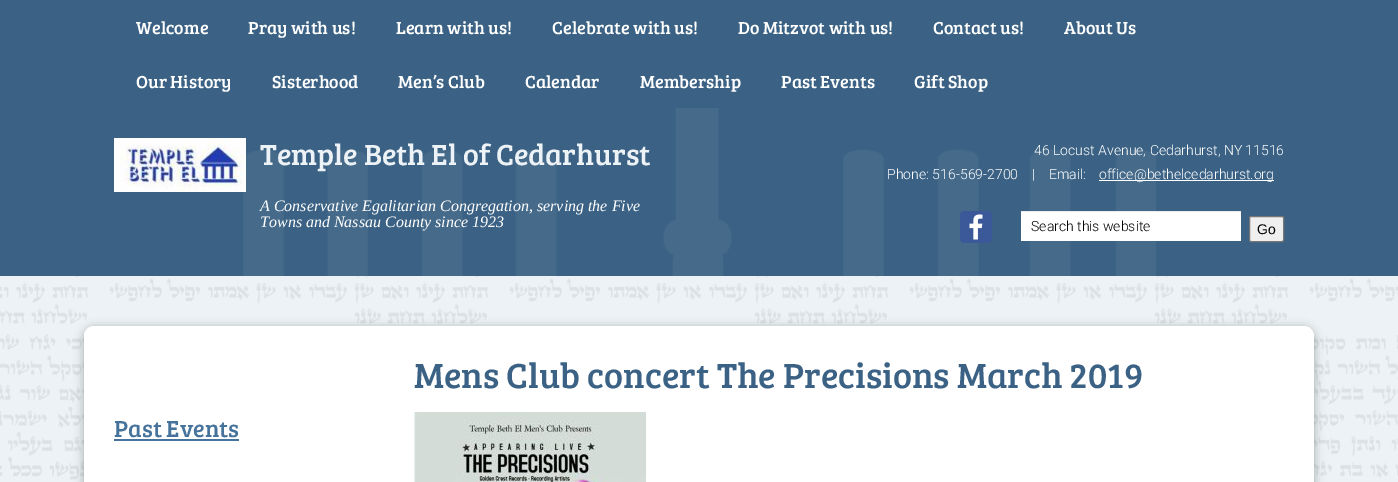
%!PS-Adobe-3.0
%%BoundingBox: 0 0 1398 482
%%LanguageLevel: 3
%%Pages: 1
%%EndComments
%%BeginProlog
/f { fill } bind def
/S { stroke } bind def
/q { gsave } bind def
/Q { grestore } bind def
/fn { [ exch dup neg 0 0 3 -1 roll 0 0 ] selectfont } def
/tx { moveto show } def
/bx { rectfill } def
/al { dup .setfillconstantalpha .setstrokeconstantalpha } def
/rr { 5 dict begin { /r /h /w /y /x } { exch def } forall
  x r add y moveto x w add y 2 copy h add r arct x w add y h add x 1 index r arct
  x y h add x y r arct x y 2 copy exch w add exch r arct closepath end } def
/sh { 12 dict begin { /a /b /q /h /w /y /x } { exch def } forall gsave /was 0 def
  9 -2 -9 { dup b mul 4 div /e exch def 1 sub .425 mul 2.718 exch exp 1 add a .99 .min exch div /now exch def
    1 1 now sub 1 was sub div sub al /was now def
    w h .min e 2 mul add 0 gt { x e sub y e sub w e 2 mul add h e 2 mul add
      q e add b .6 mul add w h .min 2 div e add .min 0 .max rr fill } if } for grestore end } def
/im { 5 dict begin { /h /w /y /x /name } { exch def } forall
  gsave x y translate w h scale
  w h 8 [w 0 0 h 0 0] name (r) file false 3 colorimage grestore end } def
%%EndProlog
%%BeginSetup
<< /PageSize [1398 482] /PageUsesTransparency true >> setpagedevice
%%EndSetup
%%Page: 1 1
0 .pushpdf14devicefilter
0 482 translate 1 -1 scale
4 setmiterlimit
0.231 0.384 0.518 setrgbcolor
0 0 1398 482 bx
/BreeSerif-Regular 18 fn
1 setgray
(Welcome) 136 34 tx
(Pray with us!) 248 34 tx
(Learn with us!) 396 34 tx
(Celebrate with us!) 552 34 tx
(Do Mitzvot with us!) 738 34 tx
(Contact us!) 933 34 tx
(About Us) 1064 34 tx
(Our History) 136 88 tx
(Sisterhood) 272 88 tx
(Men’s Club) 398 88 tx
(Calendar) 525 88 tx
(Membership) 640 88 tx
(Past Events) 781 88 tx
(Gift Shop) 914 88 tx
(image0.raw) 243 108 913 168 im
(image1.raw) 114 138 132 54 im
/BreeSerif-Regular 30 fn
0.925 0.949 0.961 setrgbcolor
(Temple Beth El of Cedarhurst) 260 165 tx
/LiberationSerif-Italic 16 fn
1 setgray
(A Conservative Egalitarian Congregation, serving the Five) 260 211 tx
(Towns and Nassau County since 1923) 260 227 tx
/Roboto-Light 14 fn
(46 Locust Avenue, Cedarhurst, NY 11516) 1034 155 tx
(Phone: 516-569-2700) 887 179 tx
(|) 1032 179 tx
(Email:) 1049 179 tx
1099 180 175 1 bx
(office@bethelcedarhurst.org) 1099 179 tx
(image2.raw) 960 211 32 32 im
1021 212 220 29 bx
0.925 setgray
1021 211 220 1 bx
0 setgray
(Search this website) 1031 231 tx
0.937 setgray
1249.5 216.5 34 25 1.5 rr q f Q
0.463 setgray
S
/LiberationSans-Regular 14 fn
0 setgray
(Go) 1257 234 tx
0.925 0.949 0.961 setrgbcolor
0 276 1398 206 bx
(image3.raw) 0 276 1398 204 im
0.196 setgray
84 328 1230 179 10 5 0.4 sh
1 setgray
84 326 1230 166 10 rr f
/BreeSerif-Regular 36 fn
0.231 0.384 0.518 setrgbcolor
(Mens Club concert The Precisions March 2019) 414 388 tx
(image4.raw) 414 412 232 70 im
/BreeSerif-Regular 24 fn
0.275 0.451 0.608 setrgbcolor
(Past Events) 114 437 tx
114 439 125 2 bx
.poppdf14devicefilter showpage
%%EOF
